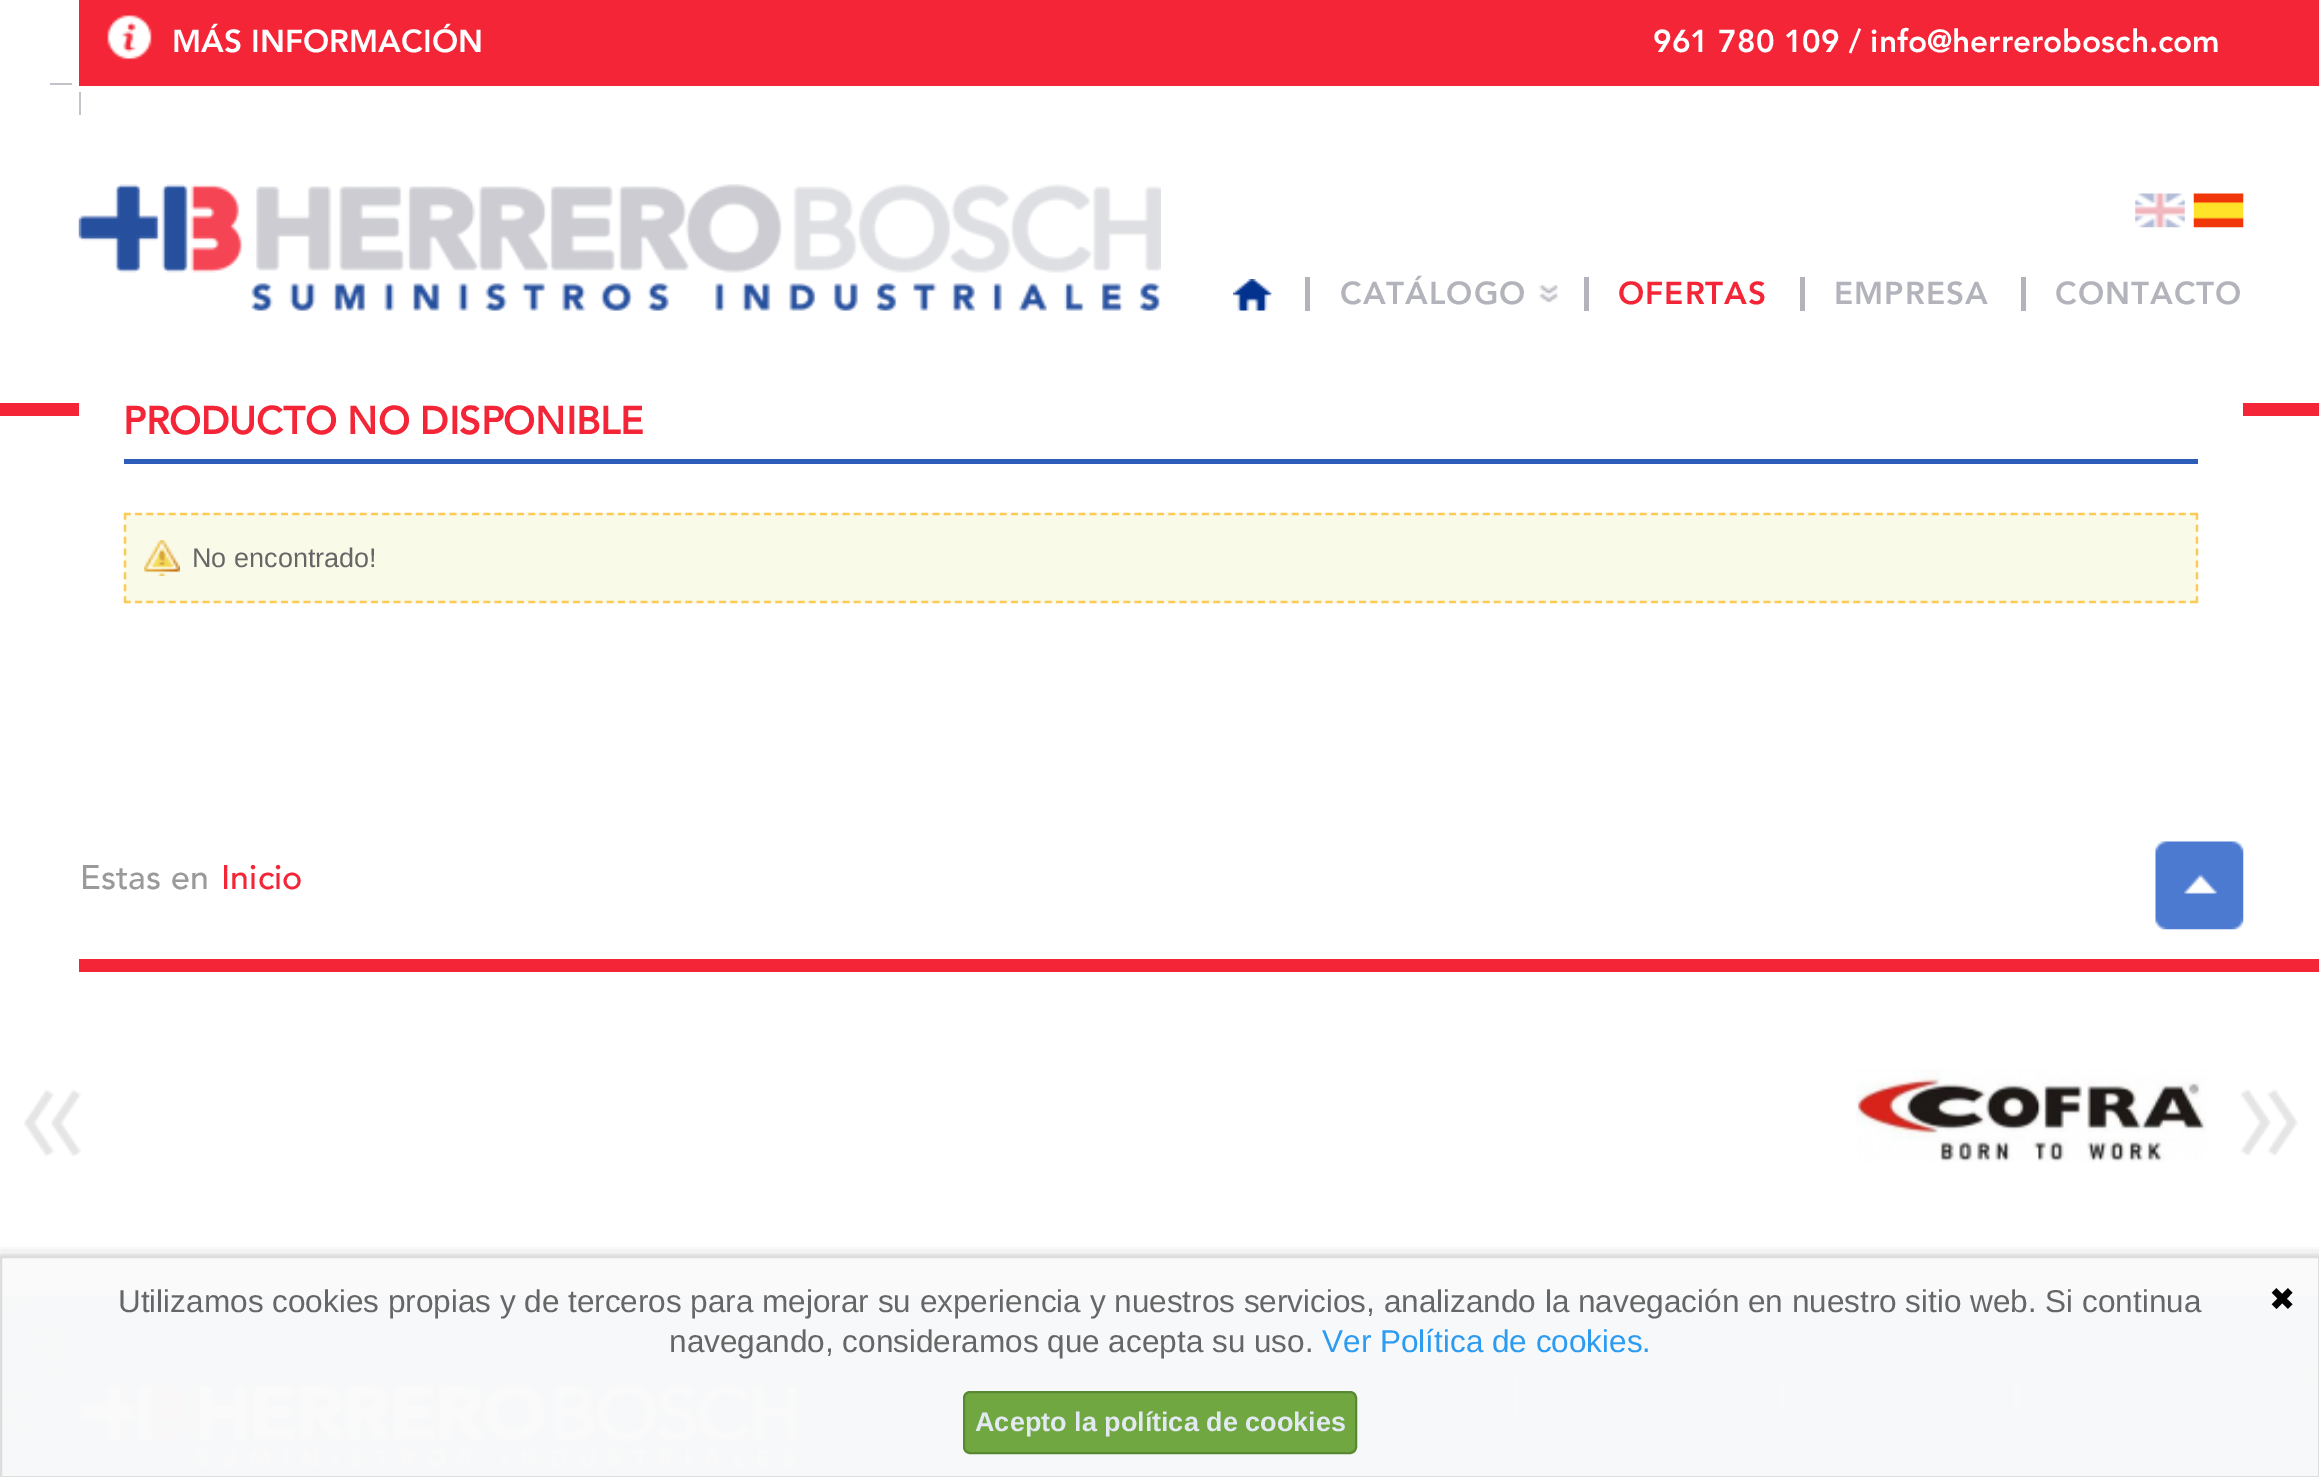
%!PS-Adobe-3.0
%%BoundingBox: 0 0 2319 1477
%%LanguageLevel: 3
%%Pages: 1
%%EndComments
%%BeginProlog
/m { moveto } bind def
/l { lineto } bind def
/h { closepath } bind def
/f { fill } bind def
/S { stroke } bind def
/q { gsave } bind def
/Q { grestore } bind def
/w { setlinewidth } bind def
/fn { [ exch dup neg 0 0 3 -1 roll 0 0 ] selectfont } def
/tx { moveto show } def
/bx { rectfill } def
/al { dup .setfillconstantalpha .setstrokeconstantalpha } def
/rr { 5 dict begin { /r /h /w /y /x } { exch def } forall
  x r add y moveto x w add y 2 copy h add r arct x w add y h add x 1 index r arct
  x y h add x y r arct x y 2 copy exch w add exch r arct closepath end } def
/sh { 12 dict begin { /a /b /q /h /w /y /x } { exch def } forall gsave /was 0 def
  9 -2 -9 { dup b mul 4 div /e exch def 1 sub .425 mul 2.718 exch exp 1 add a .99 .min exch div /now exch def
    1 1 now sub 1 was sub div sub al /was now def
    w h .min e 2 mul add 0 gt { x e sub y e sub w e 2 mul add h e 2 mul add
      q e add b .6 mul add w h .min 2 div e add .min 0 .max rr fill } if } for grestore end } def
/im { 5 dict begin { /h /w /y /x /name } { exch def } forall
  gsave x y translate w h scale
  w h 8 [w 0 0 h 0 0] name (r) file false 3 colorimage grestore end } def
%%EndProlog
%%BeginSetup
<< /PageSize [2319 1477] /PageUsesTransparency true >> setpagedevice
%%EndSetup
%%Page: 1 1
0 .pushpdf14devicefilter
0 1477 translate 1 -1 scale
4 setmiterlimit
1 setgray
0 0 2319 1477 bx
0.957 0.145 0.212 setrgbcolor
79 0 2240 86 bx
(image0.raw) 107 15 45 45 im
/Avenir-Black 31.5 fn
1 setgray
(MÁS INFORMACIÓN) 172 52 tx
(961 780 109 / info@herrerobosch.com) 1653 52 tx
0.765 0.769 0.792 setrgbcolor
50 83 22 2 bx
79 92 2 23 bx
(image1.raw) 78 184 1083 127 im
(image2.raw) 2135 193 50 35 im
(image3.raw) 2193 193 51 35 im
(image4.raw) 1233 279 39 32 im
0.698 0.702 0.733 setrgbcolor
1305 277 5 34 bx
1340 304 m 1 0 (CATÁLOGO) ashow
(image5.raw) 1539 284 19 19 im
1584 277 5 34 bx
0.957 0.145 0.212 setrgbcolor
1618 304 m 1 0 (OFERTAS) ashow
0.698 0.702 0.733 setrgbcolor
1800 277 5 34 bx
1834 304 m 1 0 (EMPRESA) ashow
2021 277 5 34 bx
2055 304 m 1 0 (CONTACTO) ashow
0.957 0.145 0.212 setrgbcolor
0 403 2319 13 bx
1 setgray
79 403 2164 13 bx
0.173 0.365 0.722 setrgbcolor
124 459 2074 5 bx
/Avenir-Bold 38.25 fn
0.957 0.145 0.212 setrgbcolor
(PRODUCTO NO DISPONIBLE) 123 434 tx
0.976 0.98 0.91 setrgbcolor
124 513 2074 90 bx
0.988 0.796 0.341 setrgbcolor
2.2 w
[6.75 4.48] 0 setdash
124 514 m 2198 514 l S
[6.75 5.15] 0 setdash
2197 513 m 2197 603 l S
[6.75 4.48] 0 setdash
124 602 m 2198 602 l S
[6.75 5.15] 0 setdash
125 513 m 125 603 l S
(image6.raw) 144 540 36 36 im
/LiberationSans-Regular 27 fn
0.4 setgray
(No encontrado!) 192 567 tx
(image7.raw) 2155 841 89 89 im
(image8.raw) 24 1089 57 68 im
(image9.raw) 1856 1069 351 93 im
(image10.raw) 2241 1089 57 67 im
/Avenir-Medium 34 fn
0.604 setgray
(Estas en) 80 889 tx
0.957 0.145 0.212 setrgbcolor
(Inicio) 221 889 tx
79 959 2240 13 bx
(image11.raw) 2 1296 2316 180 im
(image12.raw) 81 1383 716 84 im
0.698 0.702 0.733 setrgbcolor
1514 1379 5 34 bx
1780 1379 5 34 bx
2014 1379 5 34 bx
q
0 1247 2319 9 rectclip
0.267 setgray
0 1265 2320 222 0 9 0.99 sh
Q
0.99 al
0.98 setgray
1 1257 m 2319 1257 l 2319 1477 l 1 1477 l h f
1 al
0.867 setgray
2 w
[] 0 setdash
1 1257 m 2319 1257 l 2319 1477 l 1 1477 l h S
/LiberationSans-Regular 31.5 fn
0.4 setgray
(Utilizamos cookies propias y de terceros para mejorar su experiencia y nuestros servicios, analizando la navegación en nuestro sitio web. Si continua) 118 1312 tx
(navegando, consideramos que acepta su uso.) 669 1352 tx
0.176 0.608 0.941 setrgbcolor
(Ver Política de cookies.) 1322 1352 tx
/DejaVuSans-Regular 31.5 fn
0.008 setgray
(✖) 2269 1310 tx
0.439 0.655 0.251 setrgbcolor
964 1392 392 61 6 rr q f Q
0.349 0.533 0.2 setrgbcolor
S
/LiberationSans-Bold 27 fn
0.89 0.914 0.953 setrgbcolor
(Acepto la política de cookies) 975 1431 tx
.poppdf14devicefilter showpage
%%EOF
